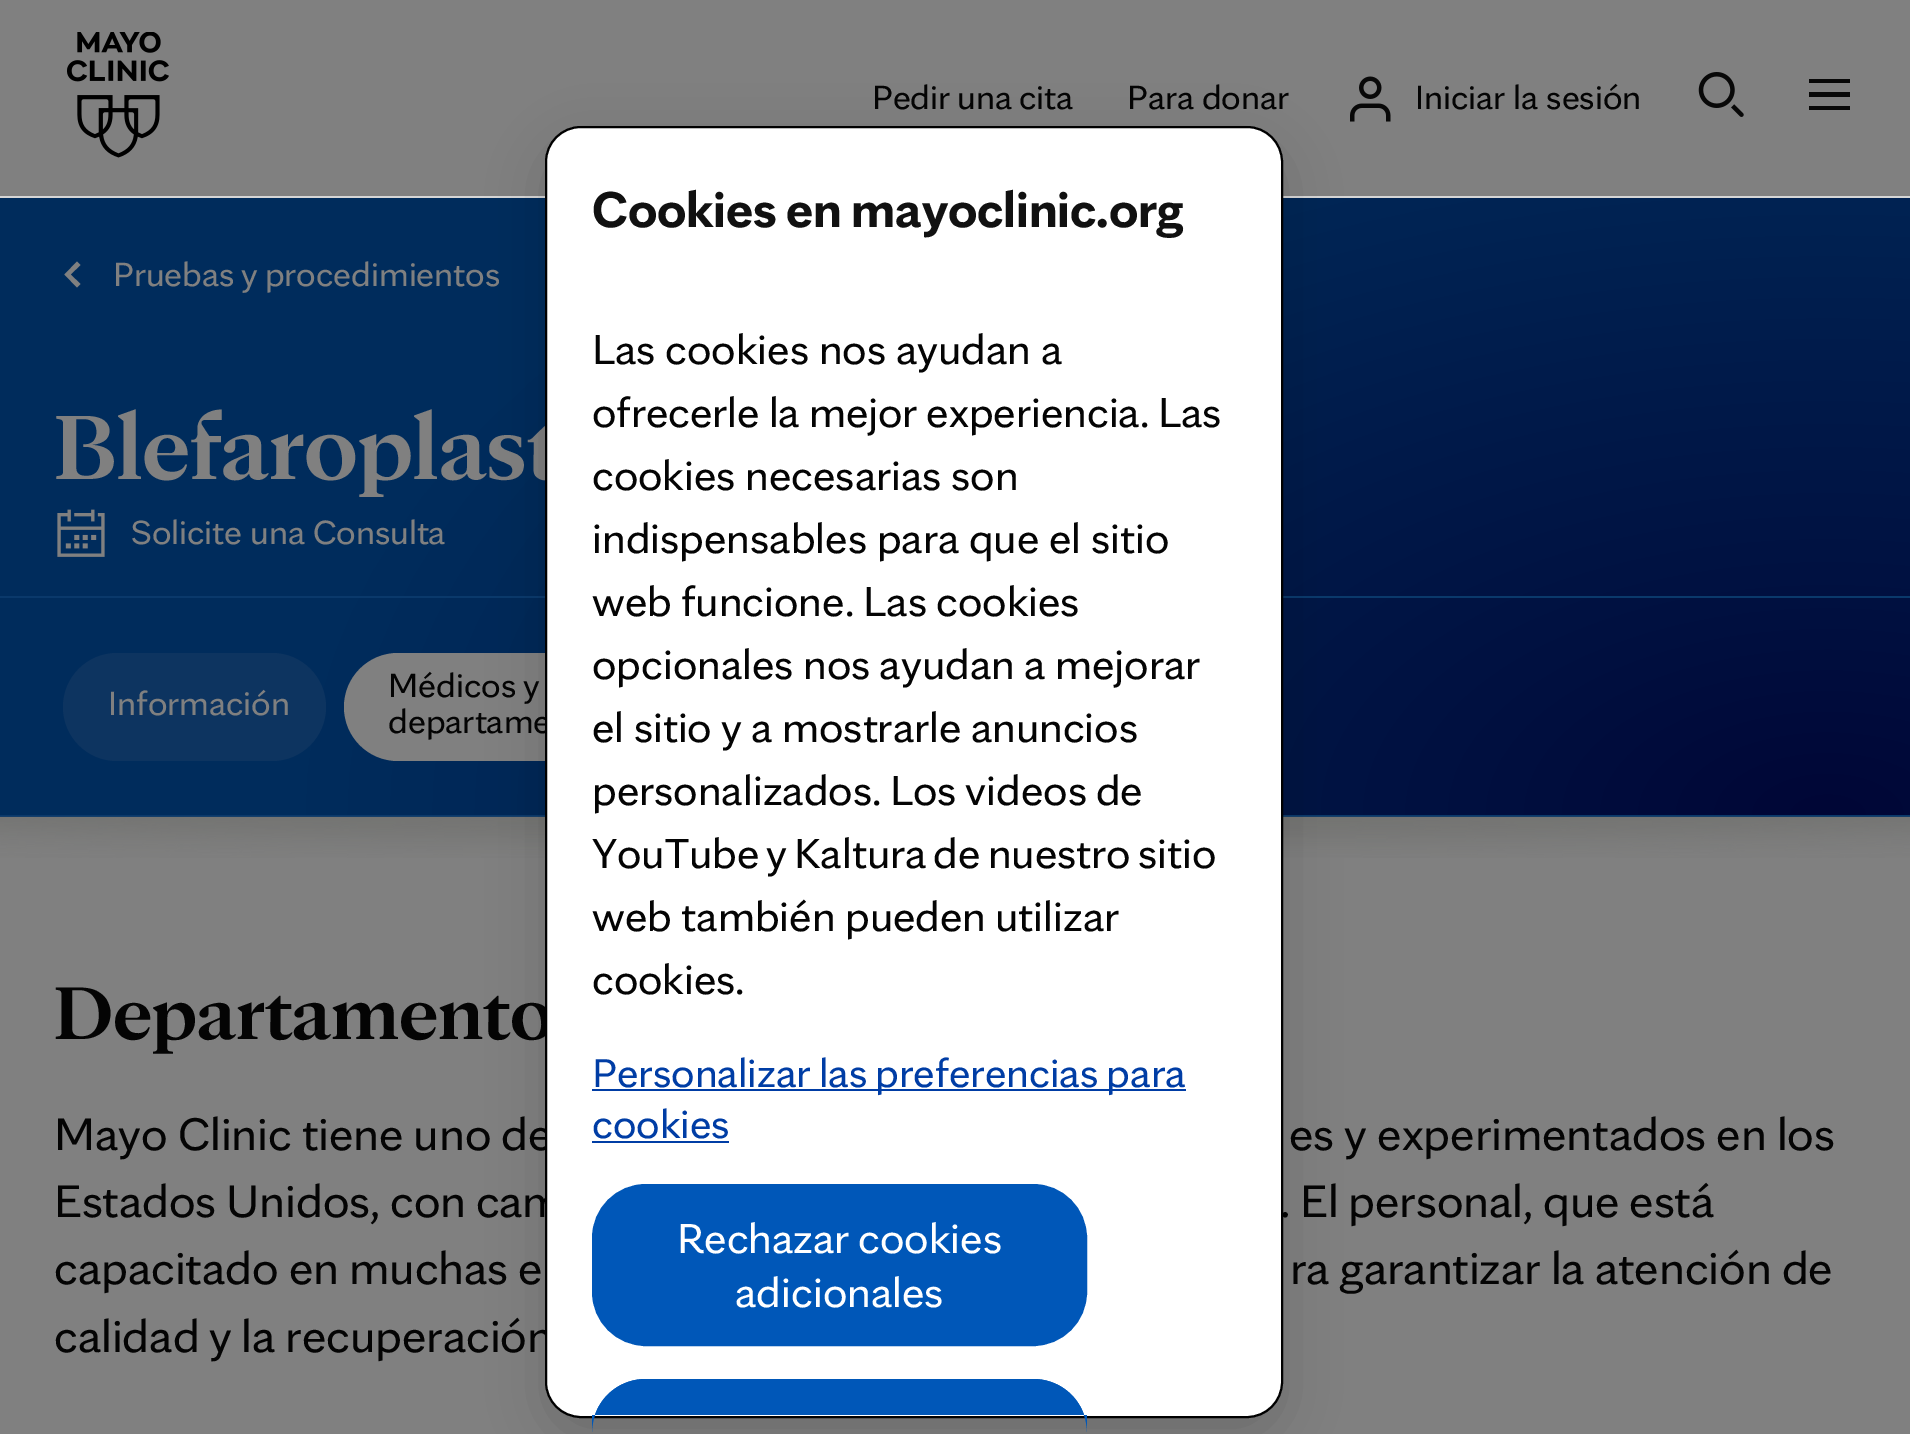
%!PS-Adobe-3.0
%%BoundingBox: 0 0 1910 1434
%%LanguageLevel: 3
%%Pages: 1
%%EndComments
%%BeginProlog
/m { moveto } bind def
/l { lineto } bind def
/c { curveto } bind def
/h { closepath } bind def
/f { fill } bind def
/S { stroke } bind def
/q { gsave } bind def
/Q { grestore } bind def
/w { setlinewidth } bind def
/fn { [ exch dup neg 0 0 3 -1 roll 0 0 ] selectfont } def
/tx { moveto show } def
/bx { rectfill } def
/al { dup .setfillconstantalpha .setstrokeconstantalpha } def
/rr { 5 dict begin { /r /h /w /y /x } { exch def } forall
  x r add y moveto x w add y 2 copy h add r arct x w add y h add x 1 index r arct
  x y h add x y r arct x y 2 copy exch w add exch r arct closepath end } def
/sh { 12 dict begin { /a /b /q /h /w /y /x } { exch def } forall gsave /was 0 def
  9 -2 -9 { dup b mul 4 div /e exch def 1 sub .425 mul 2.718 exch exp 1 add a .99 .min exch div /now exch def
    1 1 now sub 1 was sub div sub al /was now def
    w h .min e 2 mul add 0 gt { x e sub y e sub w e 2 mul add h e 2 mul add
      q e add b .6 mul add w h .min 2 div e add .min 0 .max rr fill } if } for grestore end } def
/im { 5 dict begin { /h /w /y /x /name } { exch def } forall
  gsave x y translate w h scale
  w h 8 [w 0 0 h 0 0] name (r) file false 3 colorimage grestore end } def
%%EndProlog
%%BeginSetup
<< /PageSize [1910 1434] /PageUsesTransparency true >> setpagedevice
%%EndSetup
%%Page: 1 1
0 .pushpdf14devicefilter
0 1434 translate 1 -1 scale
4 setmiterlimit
0.502 setgray
0 0 1910 1434 bx
0.839 setgray
0 196 1910 2 bx
(image0.raw) 67 32 102 126 im
/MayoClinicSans-Regular 36 fn
0.016 setgray
872 109 m -1 0 32 (Pedir una cita) widthshow
(Para donar) 1127 109 tx
(image1.raw) 1350 76 41 46 im
(Iniciar la sesión) 1415 109 tx
(image2.raw) 1698 72 46 45 im
0.031 setgray
1809 79 41 4 bx
1809 92 41 5 bx
1809 106 41 4 bx
q 0 198 m 1910 198 l 1910 815 l 0 815 l h clip newpath 1828 815 translate 1523 828 scale
<< /ShadingType 3 /ColorSpace /DeviceRGB /Coords [0 0 0 0 0 1] /Extend [true true] /Function << /FunctionType 2 /Domain [0 1] /C0 [0 0.024 0.212] /C1 [0 0.173 0.361] /N 1 >> >> shfill Q
0.039 0.224 0.42 setrgbcolor
0 815 1910 2 bx
0.502 setgray
77 287.5 m 64.5 274.5 l 77 261.5 l 80.5 265 l 70.5 274.5 l 80.5 284 l h f
113 286 m -1 0 32 (Pruebas y procedimientos) widthshow
/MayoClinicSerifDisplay-Bold 98 fn
(Blefaroplast) 54 479 tx
(image3.raw) 57 509 48 48 im
/MayoClinicSans-Regular 36 fn
(Solicite una Consulta) 131 544 tx
0.039 0.224 0.42 setrgbcolor
0 596 1910 2 bx
0.051 0.204 0.376 setrgbcolor
63 653 263 108 54 rr f
0.502 setgray
(Información) 108 715 tx
344 653 309 108 54 rr f
0.016 setgray
388 697 m -1 0 32 (Médicos y) widthshow
(departame) 388 733 tx
(image4.raw) 0 816 1910 42 im
/MayoClinicSerifDisplay-Bold 80 fn
54 1039 m -5 0 32 (Departamento) widthshow
/MayoClinicSans-Regular 49 fn
54 1150 m -0.5 0 32 (Mayo Clinic tiene uno de) widthshow
1289 1150 m -0.5 0 32 (es y experimentados en los) widthshow
54 1217 m -1 0 32 (Estados Unidos, con cam) widthshow
1280 1217 m -1 0 32 (. El personal, que está) widthshow
54 1284 m -0.5 0 32 (capacitado en muchas e) widthshow
1290 1284 m -0.5 0 32 (ra garantizar la atención de) widthshow
54 1352 m -1 0 32 (calidad y la recuperación) widthshow
0 setgray
545 144 738 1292 36 27 0.16 sh
1 setgray
546 127 736 1290 35 rr q f Q
0 setgray
2 w
S
/MayoClinicSans-Bold 54 fn
0.067 setgray
592 227 m -1 0 32 (Cookies en mayoclinic.org) widthshow
/MayoClinicSans-Regular 45 fn
0.016 setgray
(Las cookies nos ayudan a) 592 364 tx
592 427 m -1 0 32 (ofrecerle la mejor experiencia. Las) widthshow
(cookies necesarias son) 592 490 tx
(indispensables para que el sitio) 592 553 tx
592 616 m -0.5 0 32 (web funcione. Las cookies) widthshow
592 679 m -0.5 0 32 (opcionales nos ayudan a mejorar) widthshow
592 742 m -0.5 0 32 (el sitio y a mostrarle anuncios) widthshow
592 805 m -1 0 32 (personalizados. Los videos de) widthshow
592 868 m -2.75 0 32 (YouTube y Kaltura de nuestro sitio) widthshow
(web también) 592 931 tx
845 931 m -1 0 32 (pueden utilizar) widthshow
(cookies.) 592 994 tx
0 0.239 0.647 setrgbcolor
592 1089 594 2 bx
/MayoClinicSans-Regular 43.25 fn
592 1087 m -1.5 0 32 (Personalizar las preferencias para) widthshow
(cookies) 592 1138 tx
592 1141 137 2 bx
0 0.341 0.722 setrgbcolor
594.5 1186.5 490 157 51.5 rr q f Q
5 w
S
/MayoClinicSans-Regular 45 fn
1 setgray
677 1253 m -1 0 32 (Rechazar cookies) widthshow
(adicionales) 735 1307 tx
0 0.341 0.722 setrgbcolor
646 1379 m 1033 1379 l 1063 1379 1087 1403 1087 1433 c 1087 1415 l 592 1415 l 592 1433 l 592 1403 616 1379 646 1379 c h f
646 1379 m 622 1379 602 1394 595 1415 c 600 1415 l 608 1397 625 1384 646 1384 c 1033 1384 l 1054 1384 1071 1397 1079 1415 c 1084 1415 l 1077 1394 1057 1379 1033 1379 c h f
.poppdf14devicefilter showpage
%%EOF
